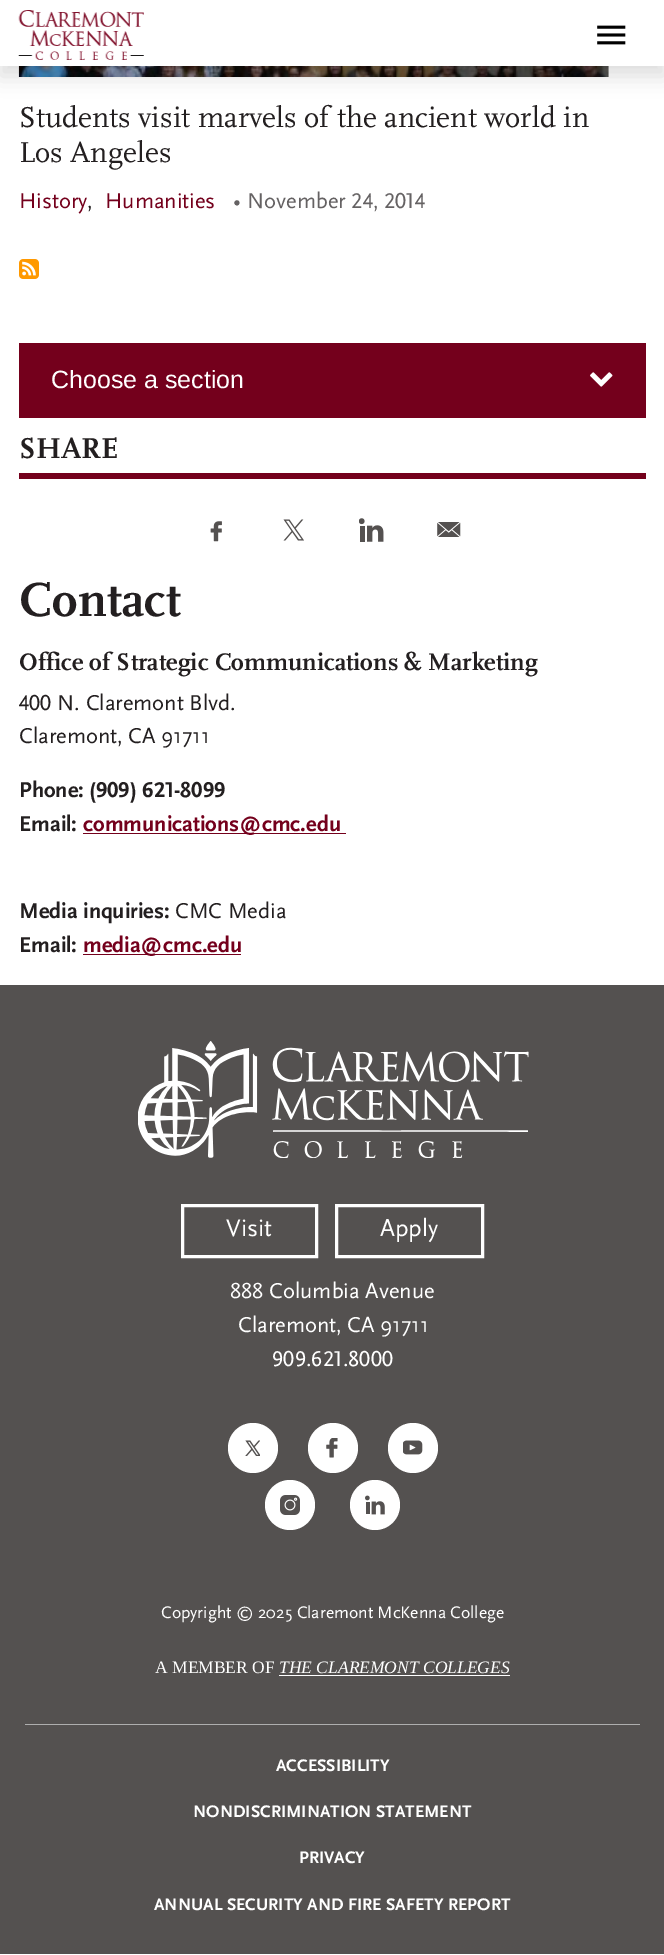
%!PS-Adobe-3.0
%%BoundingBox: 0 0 664 1955
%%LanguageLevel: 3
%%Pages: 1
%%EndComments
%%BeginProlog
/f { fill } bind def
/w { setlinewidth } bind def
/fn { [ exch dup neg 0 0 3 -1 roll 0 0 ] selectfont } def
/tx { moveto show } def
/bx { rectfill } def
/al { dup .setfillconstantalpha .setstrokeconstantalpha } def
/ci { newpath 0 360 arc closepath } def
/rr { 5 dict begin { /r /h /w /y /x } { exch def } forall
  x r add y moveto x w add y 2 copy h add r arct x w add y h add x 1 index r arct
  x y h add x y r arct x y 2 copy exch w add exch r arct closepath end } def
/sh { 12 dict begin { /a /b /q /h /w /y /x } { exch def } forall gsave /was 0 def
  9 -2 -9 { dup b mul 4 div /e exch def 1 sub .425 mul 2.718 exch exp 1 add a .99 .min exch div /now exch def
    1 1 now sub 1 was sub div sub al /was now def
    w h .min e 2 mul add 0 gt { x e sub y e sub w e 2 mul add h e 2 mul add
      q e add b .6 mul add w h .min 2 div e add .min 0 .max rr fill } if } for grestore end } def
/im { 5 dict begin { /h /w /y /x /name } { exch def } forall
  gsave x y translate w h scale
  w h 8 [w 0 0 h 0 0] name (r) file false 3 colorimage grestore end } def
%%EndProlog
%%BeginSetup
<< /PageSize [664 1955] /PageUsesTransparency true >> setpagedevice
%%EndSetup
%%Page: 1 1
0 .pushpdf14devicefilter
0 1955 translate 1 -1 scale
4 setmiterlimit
1 setgray
0 0 664 1955 bx
(image2.raw) 18 66 591 11 im
0.137 0.122 0.125 setrgbcolor
0 10 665 66 0 10 0.15 sh
1 setgray
0 0 664 66 bx
(image0.raw) 18 10 126 50 im
(image1.raw) 597 25 29 20 im
/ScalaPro-Regular 30 fn
0.137 0.122 0.125 setrgbcolor
(Students visit marvels of the ancient world in) 19 127 tx
(Los Angeles) 19 162 tx
/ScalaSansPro-Regular 22.5 fn
0.455 0 0.11 setrgbcolor
(History) 19 208 tx
0.137 0.122 0.125 setrgbcolor
(,) 87 208 tx
0.455 0 0.11 setrgbcolor
(Humanities) 105 208 tx
0.396 0.384 0.388 setrgbcolor
(•) 233 208 tx
/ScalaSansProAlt-Regular 22.5 fn
(November 24, 2014) 247 208 tx
(image3.raw) 19 259 20 20 im
0.455 0 0.11 setrgbcolor
19 343 627 75 bx
/LiberationSans-Regular 25 fn
1 setgray
(Choose a section) 51 388 tx
(image4.raw) 590 372 23 15 im
0.455 0 0.11 setrgbcolor
19 473 627 6 bx
/ScalaPro-Bold 30 fn
0.137 0.122 0.125 setrgbcolor
(SHARE) 19 458 tx
(image5.raw) 210 521 12 21 im
(image6.raw) 283 519 21 22 im
(image7.raw) 359 518 25 24 im
(image8.raw) 437 522 24 15 im
/ScalaPro-Bold 50 fn
(Contact) 19 616 tx
/ScalaPro-Bold 25 fn
(Office of Strategic Communications & Marketing) 19 670 tx
/ScalaSansProAlt-Regular 22.5 fn
(400 N. Claremont Blvd.) 19 710 tx
/ScalaSansPro-Regular 22.5 fn
(Claremont, CA 91711) 19 743 tx
/ScalaSansPro-Bold 22.5 fn
(Phone:) 19 797 tx
/ScalaSansProAlt-Bold 22.5 fn
(\(909\) 621-8099) 89 797 tx
/ScalaSansPro-Bold 22.5 fn
(Email:) 19 831 tx
0.455 0 0.11 setrgbcolor
83 833 263 1 bx
(communications@cmc.edu) 83 831 tx
0.137 0.122 0.125 setrgbcolor
(Media inquiries:) 19 918 tx
/ScalaSansPro-Regular 22.5 fn
(CMC Media) 175 918 tx
/ScalaSansPro-Bold 22.5 fn
(Email:) 19 952 tx
0.455 0 0.11 setrgbcolor
83 954 158 1 bx
(media@cmc.edu) 83 952 tx
0.329 0.318 0.314 setrgbcolor
0 985 664 969 bx
(image9.raw) 138 1041 391 117 im
1 setgray
3 w
182.5 1205.5 134 51 rectstroke
/ScalaSansPro-Regular 25 fn
(Visit) 226 1236 tx
336.5 1205.5 146 51 rectstroke
(Apply) 380 1236 tx
/ScalaSansPro-Regular 22.5 fn
(888 Columbia Avenue) 230 1298 tx
(Claremont, CA 91711) 238 1332 tx
/ScalaSansProAlt-Regular 22.5 fn
(909.621.8000) 272 1366 tx
253 1448 25 ci f
(image10.raw) 245 1440 15 16 im
333 1448 25 ci f
(image11.raw) 326 1438 12 20 im
413 1448 25 ci f
(image12.raw) 403 1440 20 15 im
290 1505 25 ci f
(image13.raw) 280 1495 20 20 im
375 1505 25 ci f
(image14.raw) 365 1495 20 20 im
0.682 setgray
25 1724 615 1 bx
/ScalaSansPro-Regular 17.5 fn
1 setgray
(Copyright © 2025 Claremont McKenna College) 161 1618 tx
/LiberationSerif-Regular 17.5 fn
(A MEMBER OF) 155 1673 tx
/LiberationSerif-Italic 17.5 fn
(THE CLAREMONT COLLEGES) 279 1673 tx
279 1675 231 1 bx
/ScalaSansPro-Bold 17.5 fn
(ACCESSIBILITY) 276 1771 tx
(NONDISCRIMINATION STATEMENT) 193 1817 tx
(PRIVACY) 299 1863 tx
(ANNUAL SECURITY AND FIRE SAFETY REPORT) 154 1910 tx
.poppdf14devicefilter showpage
%%EOF
